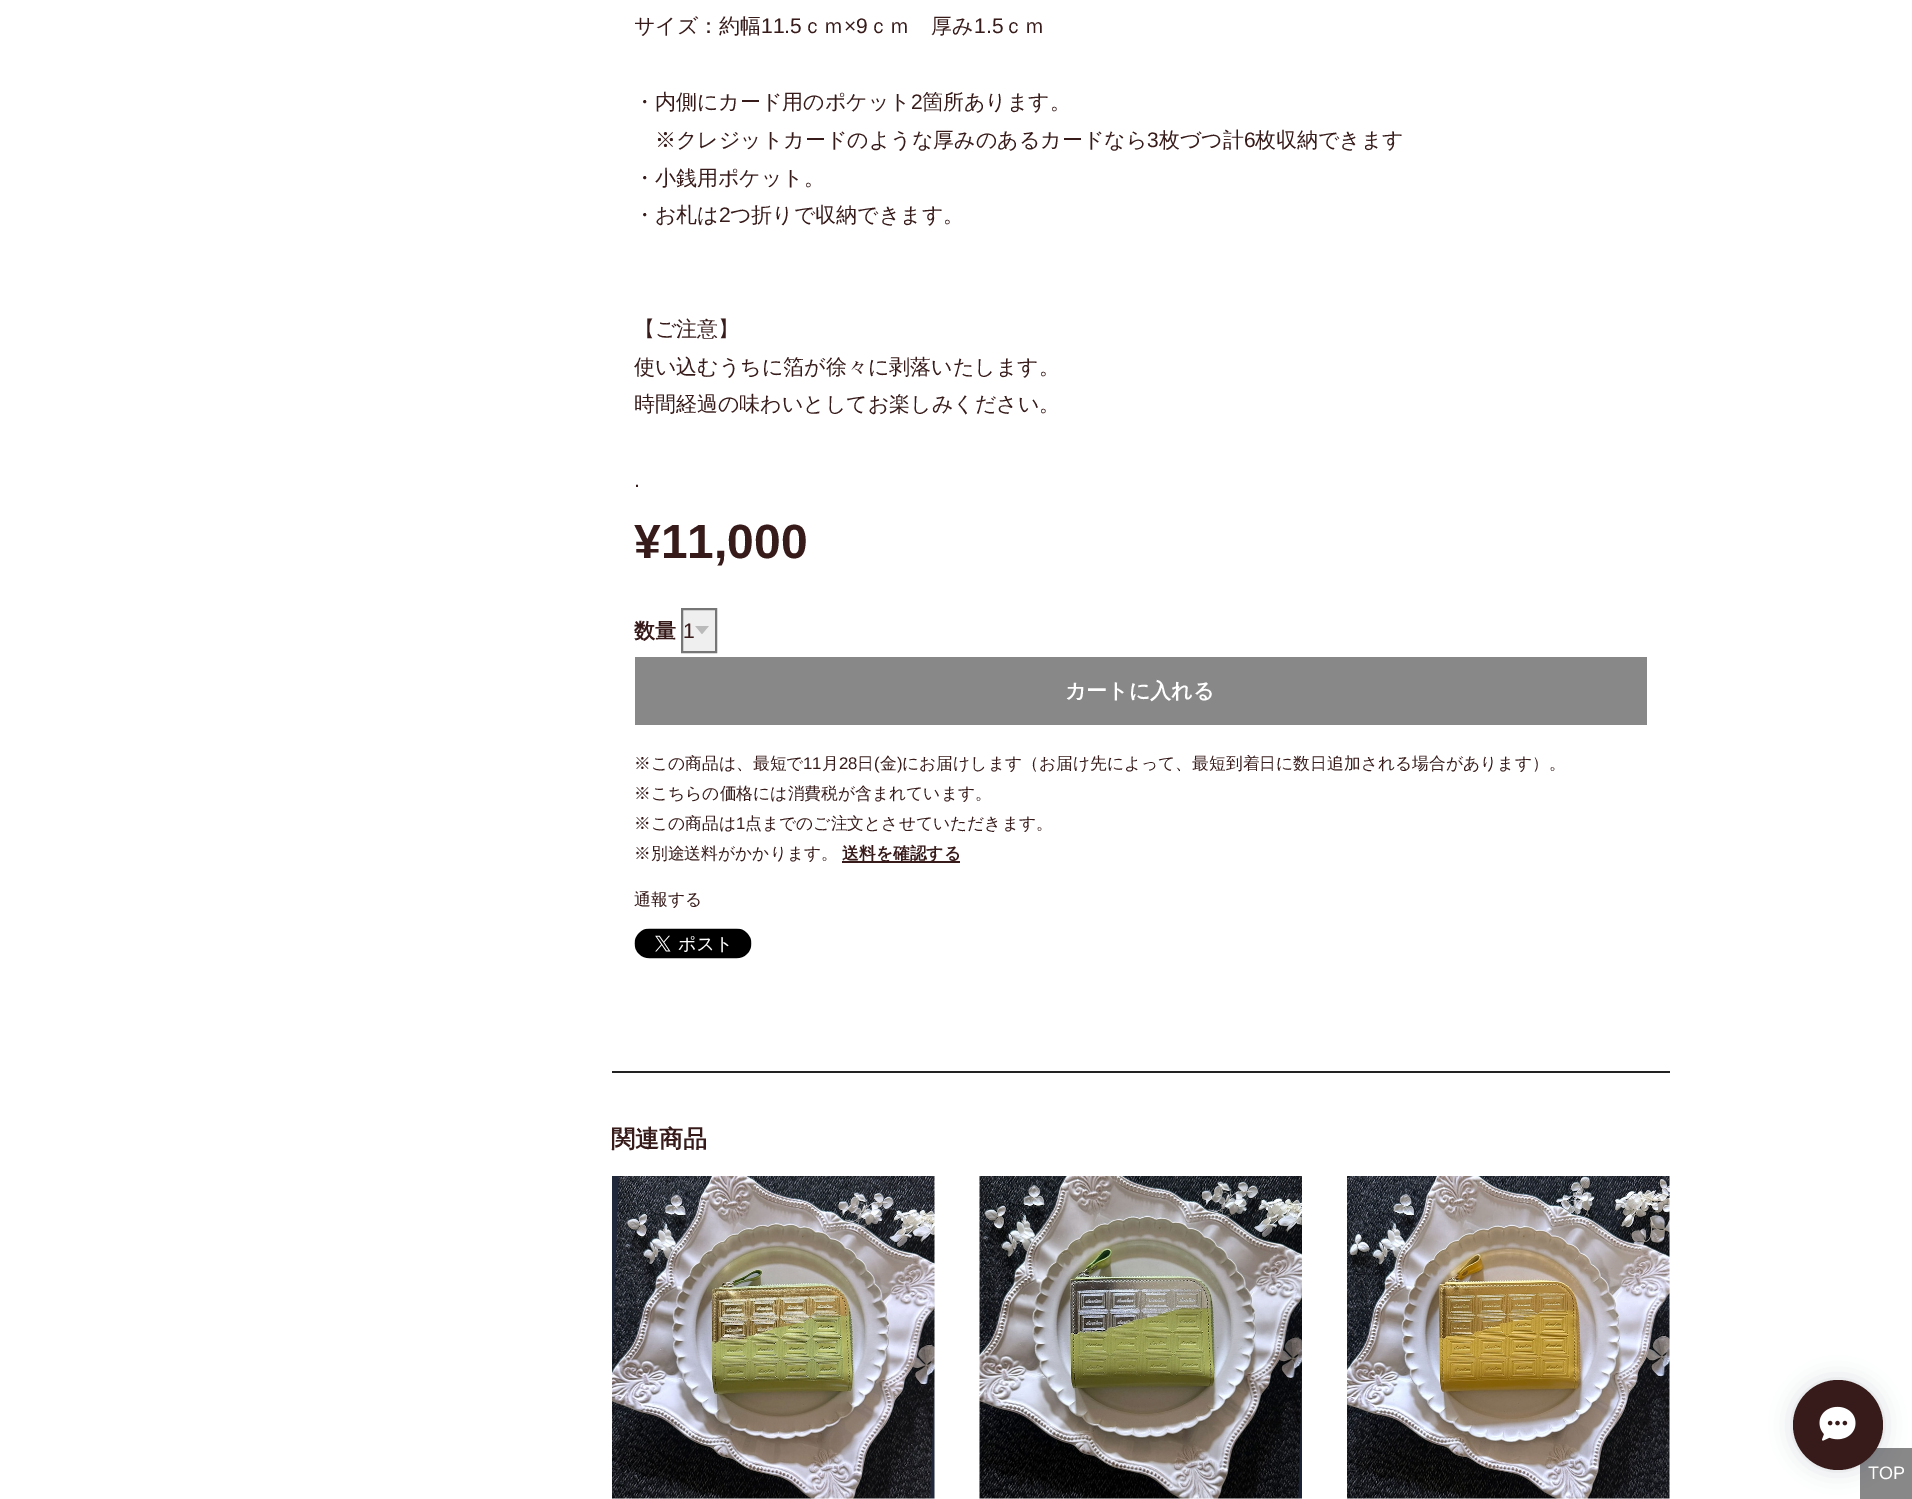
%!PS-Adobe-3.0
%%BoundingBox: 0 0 1912 1499
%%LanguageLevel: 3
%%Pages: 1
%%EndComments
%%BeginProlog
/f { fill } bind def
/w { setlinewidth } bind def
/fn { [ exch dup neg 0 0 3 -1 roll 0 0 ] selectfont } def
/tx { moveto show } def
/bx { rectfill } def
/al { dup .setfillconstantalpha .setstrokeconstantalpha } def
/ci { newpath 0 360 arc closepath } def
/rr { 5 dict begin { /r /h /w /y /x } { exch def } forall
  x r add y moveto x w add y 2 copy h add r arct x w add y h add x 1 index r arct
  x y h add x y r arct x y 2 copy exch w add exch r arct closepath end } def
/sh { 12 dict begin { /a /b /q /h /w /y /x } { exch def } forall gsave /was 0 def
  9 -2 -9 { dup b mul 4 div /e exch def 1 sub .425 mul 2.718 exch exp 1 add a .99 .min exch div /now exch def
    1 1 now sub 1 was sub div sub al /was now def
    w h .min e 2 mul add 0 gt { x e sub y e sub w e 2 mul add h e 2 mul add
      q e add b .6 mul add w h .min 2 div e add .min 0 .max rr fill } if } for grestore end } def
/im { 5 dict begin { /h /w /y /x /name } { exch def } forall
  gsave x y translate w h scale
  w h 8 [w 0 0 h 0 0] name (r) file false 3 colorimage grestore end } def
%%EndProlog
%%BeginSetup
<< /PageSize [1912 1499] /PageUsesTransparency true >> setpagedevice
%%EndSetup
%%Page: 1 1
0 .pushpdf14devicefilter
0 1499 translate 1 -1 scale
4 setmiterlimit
1 setgray
0 0 1912 1499 bx
/WenQuanYiZenHei-Medium 21 fn
0.216 0.106 0.102 setrgbcolor
(サイズ：約幅) 634 33 tx
/LiberationSans-Regular 21 fn
(11.5) 761 33 tx
/WenQuanYiZenHei-Medium 21 fn
(ｃｍ) 802 33 tx
/LiberationSans-Regular 21 fn
(×9) 844 33 tx
/WenQuanYiZenHei-Medium 21 fn
(ｃｍ　厚み) 868 33 tx
/LiberationSans-Regular 21 fn
(1.5) 974 33 tx
/WenQuanYiZenHei-Medium 21 fn
(ｃｍ) 1003 33 tx
(・内側にカード用のポケット) 634 109 tx
/LiberationSans-Regular 21 fn
(2) 911 109 tx
/WenQuanYiZenHei-Medium 21 fn
(箇所あります。) 922 109 tx
(※クレジットカードのような厚みのあるカードなら) 655 147 tx
/LiberationSans-Regular 21 fn
(3) 1147 147 tx
/WenQuanYiZenHei-Medium 21 fn
(枚づつ計) 1159 147 tx
/LiberationSans-Regular 21 fn
(6) 1244 147 tx
/WenQuanYiZenHei-Medium 21 fn
(枚収納できます) 1255 147 tx
(・小銭用ポケット。) 634 185 tx
(・お札は) 634 222 tx
/LiberationSans-Regular 21 fn
(2) 719 222 tx
/WenQuanYiZenHei-Medium 21 fn
(つ折りで収納できます。) 730 222 tx
(【ご注意】) 634 336 tx
(使い込むうちに箔が徐々に剥落いたします。) 634 374 tx
(時間経過の味わいとしてお楽しみください。) 634 411 tx
/LiberationSans-Regular 21 fn
(.) 634 487 tx
/LiberationSans-Bold 48 fn
(¥11,000) 634 558 tx
/WenQuanYiZenHei-Bold 21 fn
(数量) 634 638 tx
0.937 setgray
683 610 32 41 bx
(image0.raw) 695 626 14 8 im
0.463 setgray
2 w
682 609 34 43 rectstroke
/LiberationSans-Regular 21 fn
0.216 0.106 0.102 setrgbcolor
(1) 683 638 tx
0.533 setgray
635 657 1012 68 bx
/WenQuanYiZenHei-Bold 21 fn
1 setgray
(カートに入れる) 1065 698 tx
/WenQuanYiZenHei-Medium 16.8 fn
0.216 0.106 0.102 setrgbcolor
(※この商品は、最短で) 634 769 tx
/LiberationSans-Regular 16.8 fn
(11) 803 769 tx
/WenQuanYiZenHei-Medium 16.8 fn
(月) 822 769 tx
/LiberationSans-Regular 16.8 fn
(28) 839 769 tx
/WenQuanYiZenHei-Medium 16.8 fn
(日) 857 769 tx
/LiberationSans-Regular 16.8 fn
(\() 874 769 tx
/WenQuanYiZenHei-Medium 16.8 fn
(金) 880 769 tx
/LiberationSans-Regular 16.8 fn
(\)) 897 769 tx
/WenQuanYiZenHei-Medium 16.8 fn
(にお届けします（お届け先によって、最短到着日に数日追加される場合があります）。) 902 769 tx
(※こちらの価格には消費税が含まれています。) 634 799 tx
(※この商品は) 634 829 tx
/LiberationSans-Regular 16.8 fn
(1) 736 829 tx
/WenQuanYiZenHei-Medium 16.8 fn
(点までのご注文とさせていただきます。) 745 829 tx
(※別途送料がかかります。) 634 859 tx
842 861 118 2 bx
/WenQuanYiZenHei-Bold 16.8 fn
(送料を確認する) 842 859 tx
/WenQuanYiZenHei-Medium 16.8 fn
(通報する) 634 905 tx
(image1.raw) 634 928 118 31 im
0.133 setgray
612 1071 1058 2 bx
/WenQuanYiZenHei-Bold 24 fn
0.216 0.106 0.102 setrgbcolor
(関連商品) 611 1147 tx
(image2.raw) 612 1176 323 323 im
(image3.raw) 979 1176 323 323 im
(image4.raw) 1347 1176 323 323 im
0.533 setgray
1860 1448 52 51 bx
/LiberationSans-Regular 18 fn
1 setgray
(TOP) 1868 1479 tx
0.2 0.259 0.345 setrgbcolor
1793 1380 90 90 45 11 0.2 sh
0.216 0.106 0.102 setrgbcolor
1838 1425 45 ci f
(image5.raw) 1819 1406 37 35 im
.poppdf14devicefilter showpage
%%EOF
